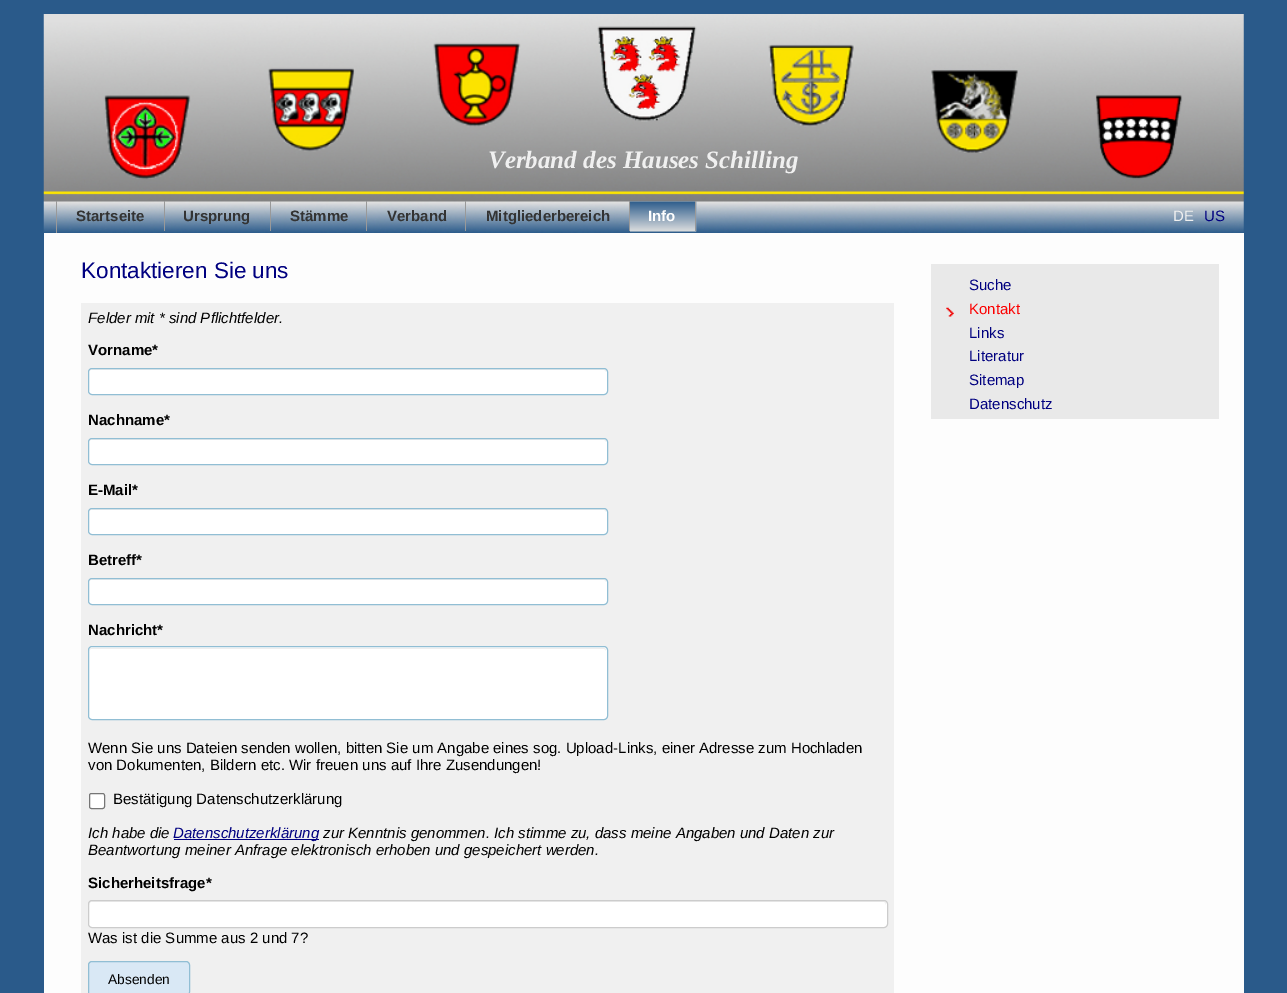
%!PS-Adobe-3.0
%%BoundingBox: 0 0 1287 993
%%LanguageLevel: 3
%%Pages: 1
%%EndComments
%%BeginProlog
/m { moveto } bind def
/l { lineto } bind def
/c { curveto } bind def
/h { closepath } bind def
/f { fill } bind def
/S { stroke } bind def
/q { gsave } bind def
/Q { grestore } bind def
/fn { [ exch dup neg 0 0 3 -1 roll 0 0 ] selectfont } def
/tx { moveto show } def
/bx { rectfill } def
/rr { 5 dict begin { /r /h /w /y /x } { exch def } forall
  x r add y moveto x w add y 2 copy h add r arct x w add y h add x 1 index r arct
  x y h add x y r arct x y 2 copy exch w add exch r arct closepath end } def
/im { 5 dict begin { /h /w /y /x /name } { exch def } forall
  gsave x y translate w h scale
  w h 8 [w 0 0 h 0 0] name (r) file false 3 colorimage grestore end } def
%%EndProlog
%%BeginSetup
<< /PageSize [1287 993] >> setpagedevice
%%EndSetup
%%Page: 1 1
0 993 translate 1 -1 scale
4 setmiterlimit
0.165 0.353 0.541 setrgbcolor
0 0 1287 993 bx
(image0.raw) 43 14 1201 219 im
/LiberationSerif-BoldItalic 25 fn
0.941 setgray
(Verband des Hauses Schilling) 488 168 tx
0.6 setgray
56 201 1 32 bx
164 201 1 30 bx
/LiberationSans-Bold 15 fn
0.2 setgray
(Startseite) 76 221 tx
0.6 setgray
270 201 1 30 bx
0.2 setgray
(Ursprung) 183 221 tx
0.6 setgray
366 201 1 30 bx
0.2 setgray
(Stämme) 290 221 tx
0.6 setgray
465 201 1 30 bx
0.2 setgray
(Verband) 387 221 tx
0.6 setgray
629 201 1 30 bx
0.2 setgray
(Mitgliederbereich) 486 221 tx
(image1.raw) 630 201 67 31 im
0.6 setgray
695 201 1 30 bx
1 setgray
(Info) 648 221 tx
/LiberationSans-Regular 15 fn
0.941 setgray
(DE) 1173 221 tx
0 0 0.502 setrgbcolor
(US) 1204 221 tx
0.992 setgray
44 233 1200 760 bx
/LiberationSans-Regular 22.5 fn
0 0 0.502 setrgbcolor
(Kontaktieren Sie uns) 81 278 tx
0.941 setgray
81 303 813 690 bx
/LiberationSans-Italic 15 fn
0 setgray
(Felder mit * sind Pflichtfelder.) 88 323 tx
/LiberationSans-Bold 15 fn
(Vorname*) 88 355 tx
1 setgray
88 368 520 27 4 rr f
0.933 setgray
91 370 m 604 370 l 605 370 606 371 606 372 c 606 370 605 369 604 369 c 92 369 l 90 369 89 370 89 372 c 89 371 90 370 91 370 c h f
0.569 0.745 0.831 setrgbcolor
88.5 368.5 519 26 3.5 rr S
0 setgray
(Nachname*) 88 425 tx
1 setgray
88 438 520 27 4 rr f
0.933 setgray
91 440 m 604 440 l 605 440 606 441 606 442 c 606 440 605 439 604 439 c 92 439 l 90 439 89 440 89 442 c 89 441 90 440 91 440 c h f
0.569 0.745 0.831 setrgbcolor
88.5 438.5 519 26 3.5 rr S
0 setgray
(E-Mail*) 88 495 tx
1 setgray
88 508 520 27 4 rr f
0.933 setgray
91 510 m 604 510 l 605 510 606 511 606 512 c 606 510 605 509 604 509 c 92 509 l 90 509 89 510 89 512 c 89 511 90 510 91 510 c h f
0.569 0.745 0.831 setrgbcolor
88.5 508.5 519 26 3.5 rr S
0 setgray
(Betreff*) 88 565 tx
1 setgray
88 578 520 27 4 rr f
0.933 setgray
91 580 m 604 580 l 605 580 606 581 606 582 c 606 580 605 579 604 579 c 92 579 l 90 579 89 580 89 582 c 89 581 90 580 91 580 c h f
0.569 0.745 0.831 setrgbcolor
88.5 578.5 519 26 3.5 rr S
0 setgray
(Nachricht*) 88 635 tx
1 setgray
88 646 520 74 4 rr f
0.933 setgray
91 649 m 604 649 l 605 649 606 650 606 651 c 606 649 605 648 604 648 c 92 648 l 90 648 89 649 89 651 c 89 650 90 649 91 649 c h f
0.569 0.745 0.831 setrgbcolor
88.5 646.5 519 73 3.5 rr S
/LiberationSans-Regular 15 fn
0 setgray
(Wenn Sie uns Dateien senden wollen, bitten Sie um Angabe eines sog. Upload-Links, einer Adresse zum Hochladen) 88 753 tx
(von Dokumenten, Bildern etc. Wir freuen uns auf Ihre Zusendungen!) 88 770 tx
1 setgray
89.5 793.5 15 15 2 rr q f Q
0.463 setgray
S
0 setgray
(Bestätigung Datenschutzerklärung) 113 804 tx
/LiberationSans-Italic 15 fn
(Ich habe die) 88 838 tx
0 0 0.502 setrgbcolor
174 839 145 1 bx
(Datenschutzerklärung) 173 838 tx
0 setgray
(zur Kenntnis genommen. Ich stimme zu, dass meine Angaben und Daten zur) 323 838 tx
(Beantwortung meiner Anfrage elektronisch erhoben und gespeichert werden.) 88 855 tx
/LiberationSans-Bold 15 fn
(Sicherheitsfrage*) 88 888 tx
1 setgray
88 900 800 28 4 rr f
0.933 setgray
91 902 m 884 902 l 885 902 886 904 886 905 c 886 904 l 886 902 885 901 884 901 c 92 901 l 90 901 89 902 89 904 c 89 905 l 89 904 90 902 91 902 c h f
0.8 setgray
88.5 900.5 799 27 3.5 rr S
/LiberationSans-Regular 15 fn
0 setgray
(Was ist die Summe aus 2 und 7?) 88 943 tx
0.851 0.91 0.961 setrgbcolor
88.5 961.5 101 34 3.5 rr q f Q
0.569 0.745 0.831 setrgbcolor
S
/LiberationSans-Regular 13.75 fn
0 setgray
(Absenden) 108 984 tx
0.914 setgray
931 264 288 155 bx
/LiberationSans-Regular 15 fn
0 0 0.502 setrgbcolor
(Suche) 969 290 tx
(image2.raw) 946 307 8 10 im
0.988 0 0 setrgbcolor
(Kontakt) 969 314 tx
0 0 0.502 setrgbcolor
(Links) 969 338 tx
(Literatur) 969 361 tx
(Sitemap) 969 385 tx
(Datenschutz) 969 409 tx
showpage
%%EOF
